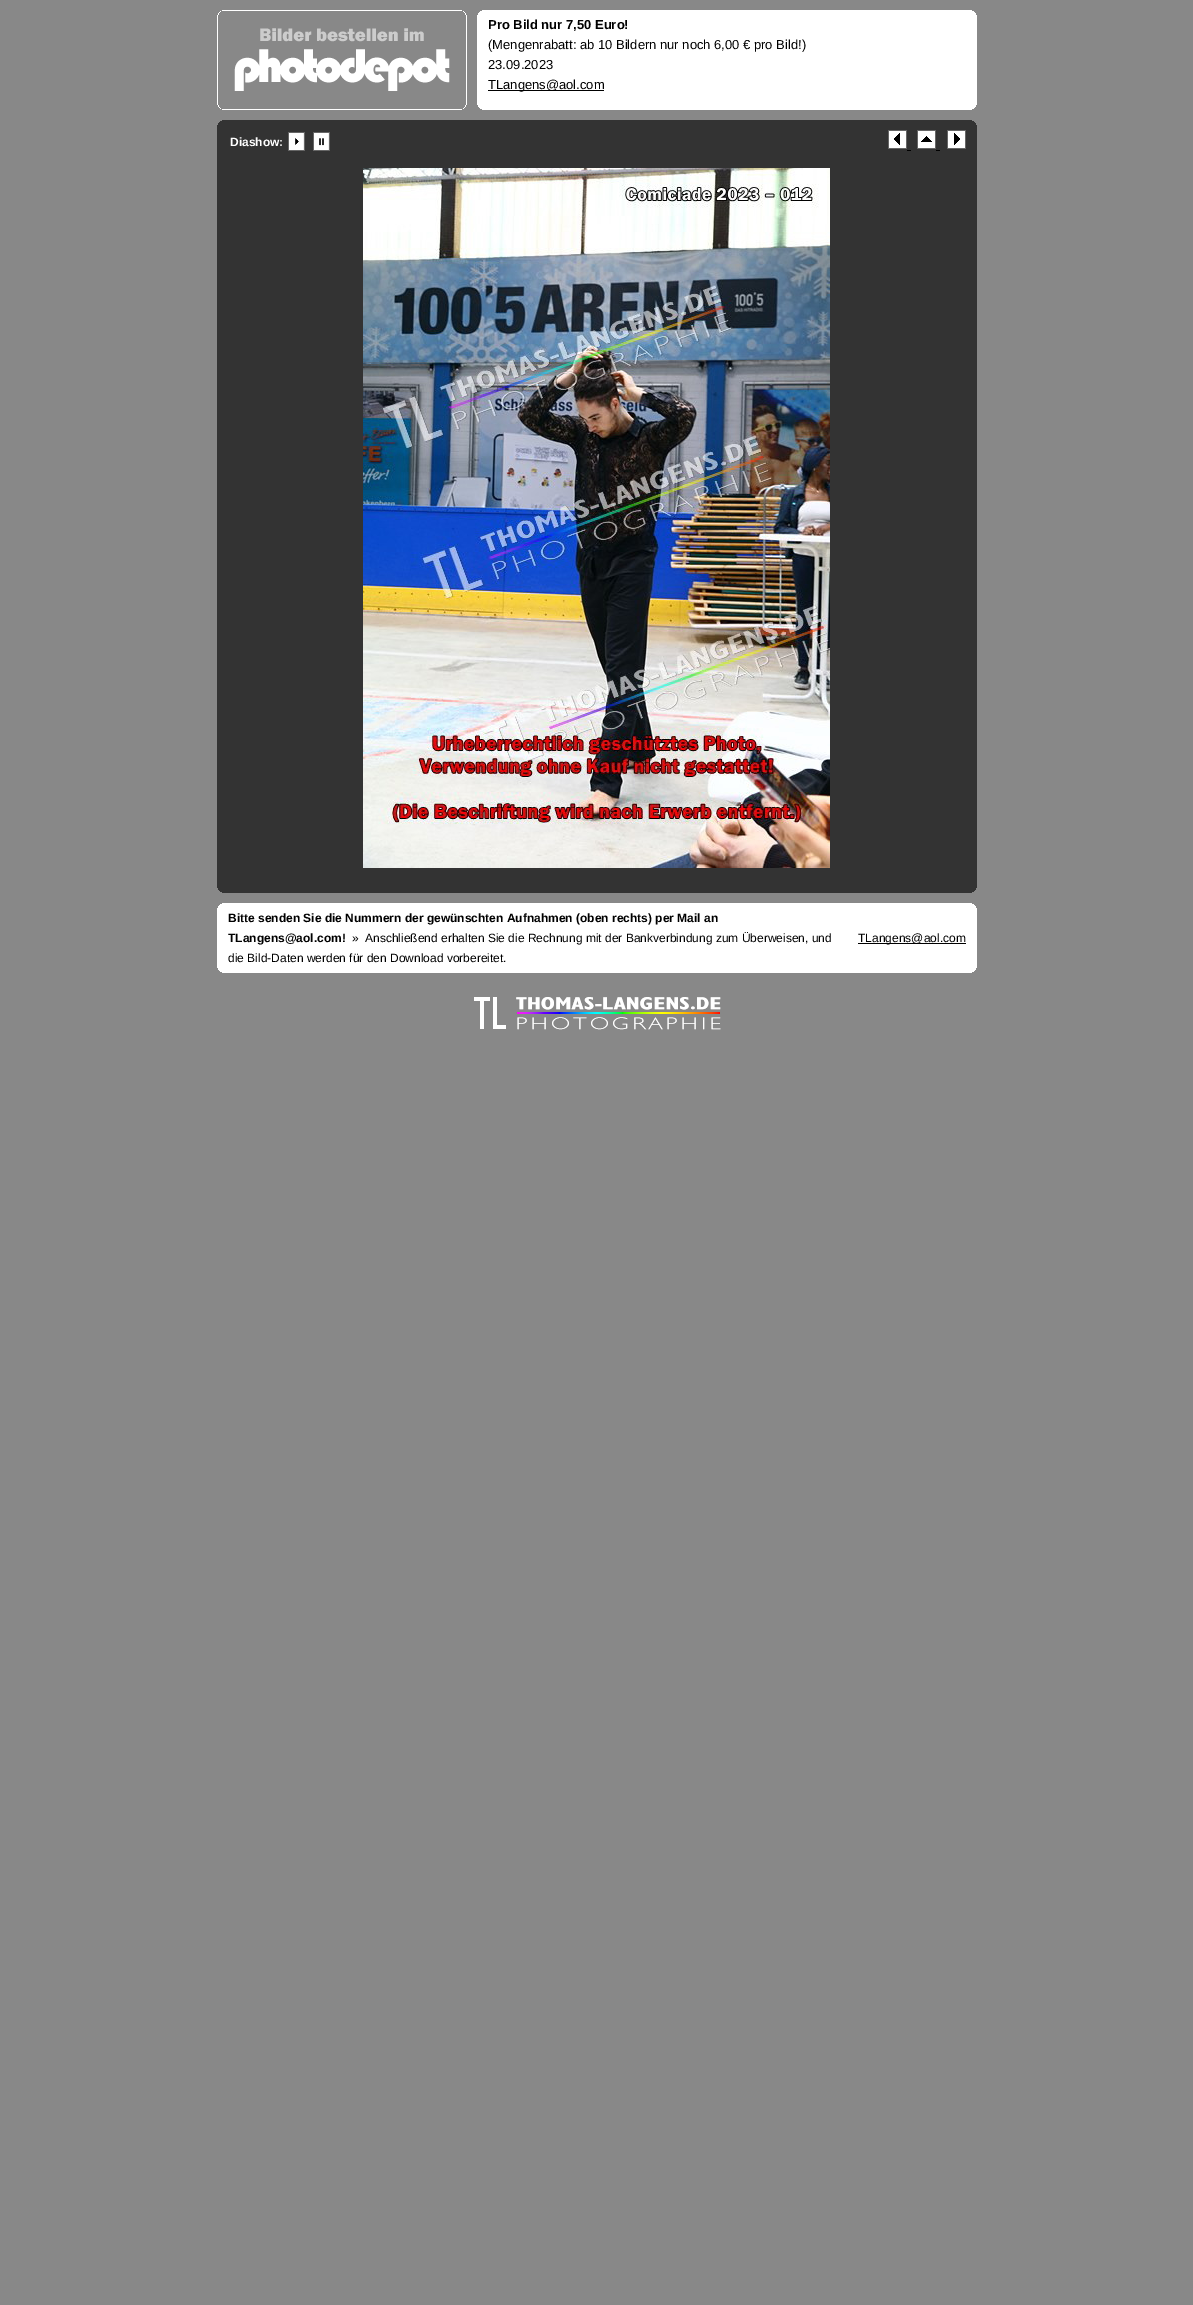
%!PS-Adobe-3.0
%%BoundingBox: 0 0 1193 2305
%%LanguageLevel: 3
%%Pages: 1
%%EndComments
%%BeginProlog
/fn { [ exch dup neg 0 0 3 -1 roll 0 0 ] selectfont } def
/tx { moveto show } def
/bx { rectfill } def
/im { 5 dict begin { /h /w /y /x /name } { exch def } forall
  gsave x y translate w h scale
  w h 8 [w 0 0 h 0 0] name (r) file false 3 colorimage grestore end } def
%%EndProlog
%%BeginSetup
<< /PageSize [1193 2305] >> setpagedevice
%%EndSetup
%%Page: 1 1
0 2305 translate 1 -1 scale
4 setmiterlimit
0.533 setgray
0 0 1193 2305 bx
1 setgray
222 10 240 1 bx
463 11 1 1 bx
220 11 1 1 bx
464 12 1 1 bx
219 12 1 1 bx
465 13 1 2 bx
218 13 1 2 bx
466 15 1 90 bx
217 15 1 90 bx
(image0.raw) 234 28 216 63 im
465 105 1 2 bx
218 105 1 2 bx
464 107 1 1 bx
219 107 1 1 bx
463 108 1 1 bx
220 108 1 1 bx
222 109 240 1 bx
482 10 490 1 bx
480 11 494 1 bx
479 12 496 1 bx
478 13 498 2 bx
477 15 500 90 bx
/LiberationSans-Bold 13 fn
0 setgray
(Pro Bild nur 7,50 Euro!) 488 29 tx
/LiberationSans-Regular 13 fn
(\(Mengenrabatt: ab 10 Bildern nur noch 6,00 € pro Bild!\)) 488 49 tx
(23.09.2023) 488 69 tx
488 90 116 1 bx
(TLangens@aol.com) 488 89 tx
1 setgray
478 105 498 2 bx
479 107 496 1 bx
480 108 494 1 bx
482 109 490 1 bx
0.2 setgray
222 120 750 1 bx
220 121 754 1 bx
219 122 756 1 bx
218 123 758 2 bx
217 125 760 763 bx
/LiberationSans-Bold 12 fn
1 setgray
(Diashow:) 230 146 tx
(image1.raw) 288 132 17 19 im
(image2.raw) 313 132 17 19 im
(image3.raw) 888 130 19 19 im
(image4.raw) 917 130 19 19 im
(image5.raw) 947 130 19 19 im
0 setgray
907 150 4 1 bx
936 150 4 1 bx
(image6.raw) 363 168 467 700 im
0.2 setgray
218 888 758 2 bx
219 890 756 1 bx
220 891 754 1 bx
222 892 750 1 bx
1 setgray
222 903 750 1 bx
220 904 754 1 bx
219 905 756 1 bx
218 906 758 2 bx
217 908 760 60 bx
0 setgray
(Bitte senden Sie die Nummern der gewünschten Aufnahmen \(oben rechts\) per Mail an) 228 922 tx
(TLangens@aol.com!) 228 942 tx
/LiberationSans-Regular 12 fn
(») 352 942 tx
(Anschließend erhalten Sie die Rechnung mit der Bankverbindung zum Überweisen, und) 365 942 tx
(die Bild-Daten werden für den Download vorbereitet.) 228 962 tx
858 943 108 1 bx
(TLangens@aol.com) 858 942 tx
1 setgray
218 968 758 2 bx
219 970 756 1 bx
220 971 754 1 bx
222 972 750 1 bx
(image7.raw) 474 997 247 33 im
showpage
%%EOF
